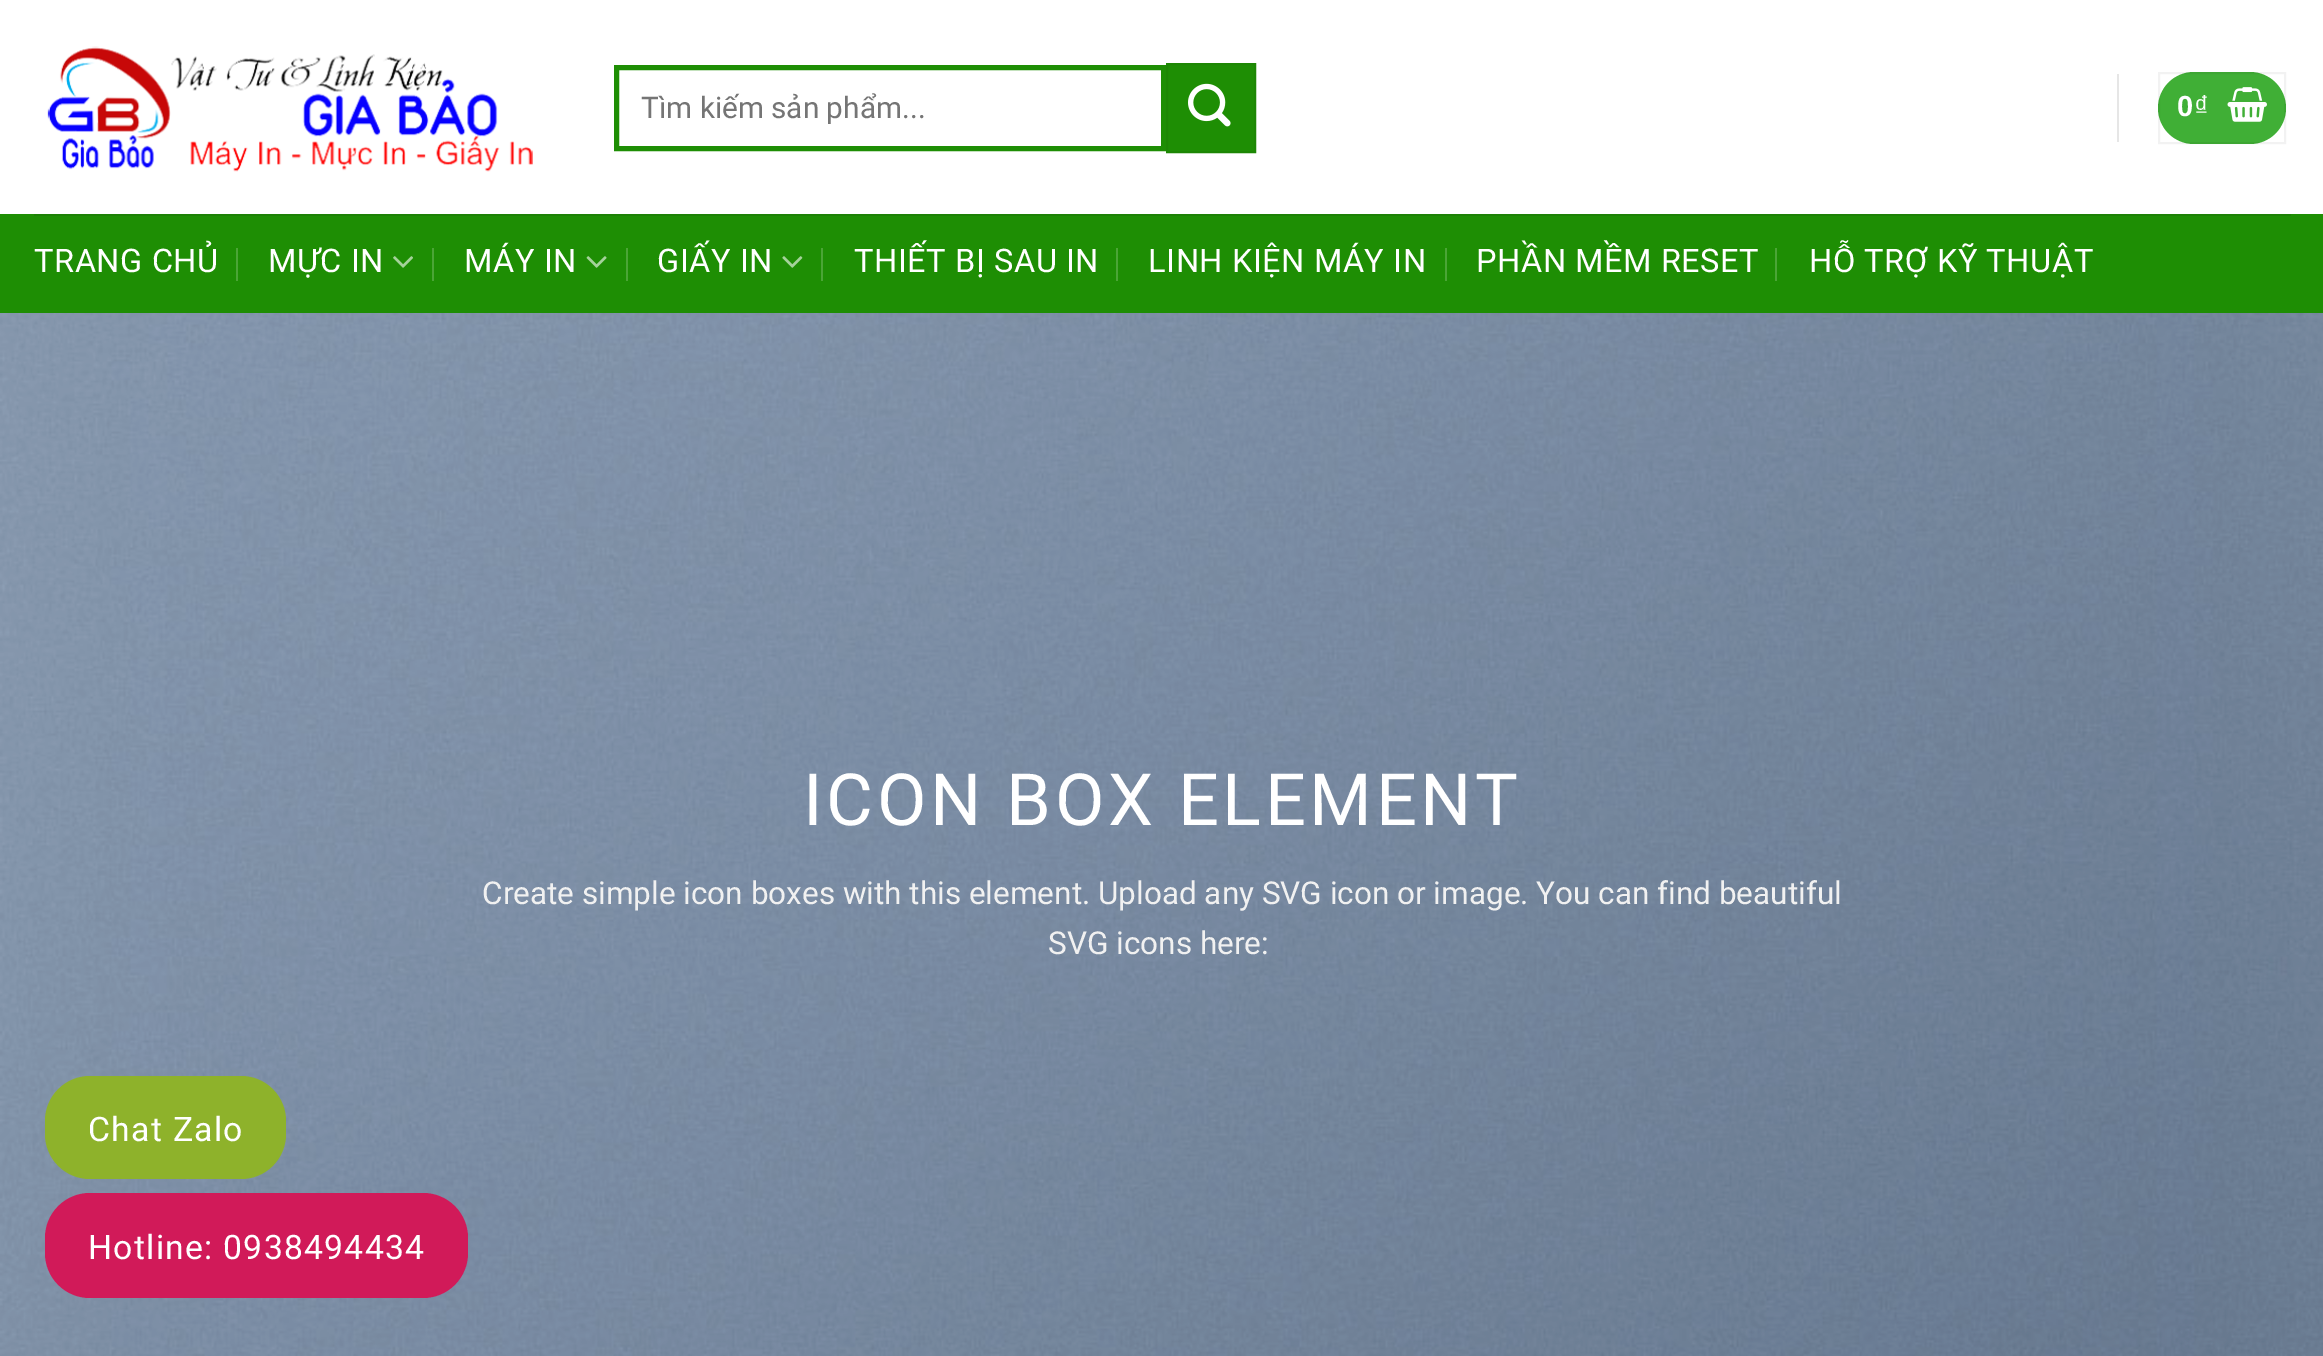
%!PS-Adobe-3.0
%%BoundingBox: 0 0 2323 1356
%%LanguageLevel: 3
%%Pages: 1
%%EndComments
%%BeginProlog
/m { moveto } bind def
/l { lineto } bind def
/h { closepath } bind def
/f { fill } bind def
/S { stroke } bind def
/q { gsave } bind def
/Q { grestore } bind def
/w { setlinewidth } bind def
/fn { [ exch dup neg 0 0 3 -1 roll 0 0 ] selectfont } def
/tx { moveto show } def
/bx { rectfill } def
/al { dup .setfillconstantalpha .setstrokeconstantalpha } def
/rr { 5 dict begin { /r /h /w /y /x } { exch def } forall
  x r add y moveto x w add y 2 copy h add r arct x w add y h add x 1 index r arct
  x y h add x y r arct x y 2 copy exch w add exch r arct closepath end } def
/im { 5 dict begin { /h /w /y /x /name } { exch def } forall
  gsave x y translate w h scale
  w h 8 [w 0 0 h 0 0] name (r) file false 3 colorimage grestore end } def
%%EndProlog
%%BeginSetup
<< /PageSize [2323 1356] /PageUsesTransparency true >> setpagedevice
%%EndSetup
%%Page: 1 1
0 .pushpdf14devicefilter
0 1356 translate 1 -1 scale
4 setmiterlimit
1 setgray
0 0 2323 1356 bx
(image0.raw) 47 46 486 126 im
0.118 0.557 0.016 setrgbcolor
5 w
616.5 67.5 547 81 rectstroke
/Roboto-Regular 29.75 fn
0.459 setgray
(Tìm kiếm sản phẩm...) 641 118 tx
0.118 0.557 0.016 setrgbcolor
1167 64 m 1255 64 l 1255 152 l 1167 152 l h q f Q
0.114 0.529 0.016 setrgbcolor
2 w
S
(image1.raw) 1188 83 43 44 im
0.902 setgray
2117 74 2 68 bx
0.251 0.686 0.212 setrgbcolor
2158 72 128 72 36 rr f
0.05 al
0 setgray
2159 73 126 70 rectstroke
/LiberationSans-Bold 29 fn
1 al
1 setgray
2177 116 m 1 0 (0) ashow
/LiberationSans-Regular 29 fn
2194 116 m 1 0 (₫) ashow
(image2.raw) 2227 87 40 35 im
0.118 0.557 0.016 setrgbcolor
0 214 2323 99 bx
0.11 0.506 0.02 setrgbcolor
34 214 2257 2 bx
/Roboto-Regular 32.5 fn
1 setgray
34 272 m 0.6 0 (TRANG CHỦ) ashow
0.294 0.647 0.212 setrgbcolor
236 248 2 33 bx
1 setgray
268 272 m 0.6 0 (MỰC IN) ashow
(image3.raw) 393 256 20 12 im
0.294 0.647 0.212 setrgbcolor
432 248 2 33 bx
1 setgray
464 272 m 0.6 0 (MÁY IN) ashow
(image4.raw) 586 256 21 12 im
0.294 0.647 0.212 setrgbcolor
626 248 2 33 bx
1 setgray
657 272 m 0.6 0 (GIẤY IN) ashow
(image5.raw) 782 256 21 12 im
0.294 0.647 0.212 setrgbcolor
821 248 2 33 bx
1 setgray
854 272 m 0.6 0 (THIẾT BỊ SAU IN) ashow
0.294 0.647 0.212 setrgbcolor
1116 248 2 33 bx
1 setgray
1148 272 m 0.6 0 (LINH KIỆN MÁY IN) ashow
0.294 0.647 0.212 setrgbcolor
1445 248 2 33 bx
1 setgray
1476 272 m 0.6 0 (PHẦN MỀM RESET) ashow
0.294 0.647 0.212 setrgbcolor
1775 248 2 33 bx
1 setgray
1809 272 m 0.6 0 (HỖ TRỢ KỸ THUẬT) ashow
(image6.raw) 0 313 2323 1043 im
/Roboto-Regular 72 fn
803 825 m 3.6 0 (ICON BOX ELEMENT) ashow
/Roboto-Regular 31.5 fn
0.945 setgray
(Create simple icon boxes with this element. Upload any SVG icon or image. You can find beautiful) 482 904 tx
(SVG icons here:) 1048 954 tx
0.557 0.698 0.169 setrgbcolor
45 1076 241 103 45 rr f
/Roboto-Regular 33.75 fn
1 setgray
88 1141 m 1.25 0 (Chat Zalo) ashow
0.82 0.102 0.349 setrgbcolor
45 1193 423 105 45 rr f
1 setgray
88 1259 m 1.25 0 (Hotline: 0938494434) ashow
.poppdf14devicefilter showpage
%%EOF
